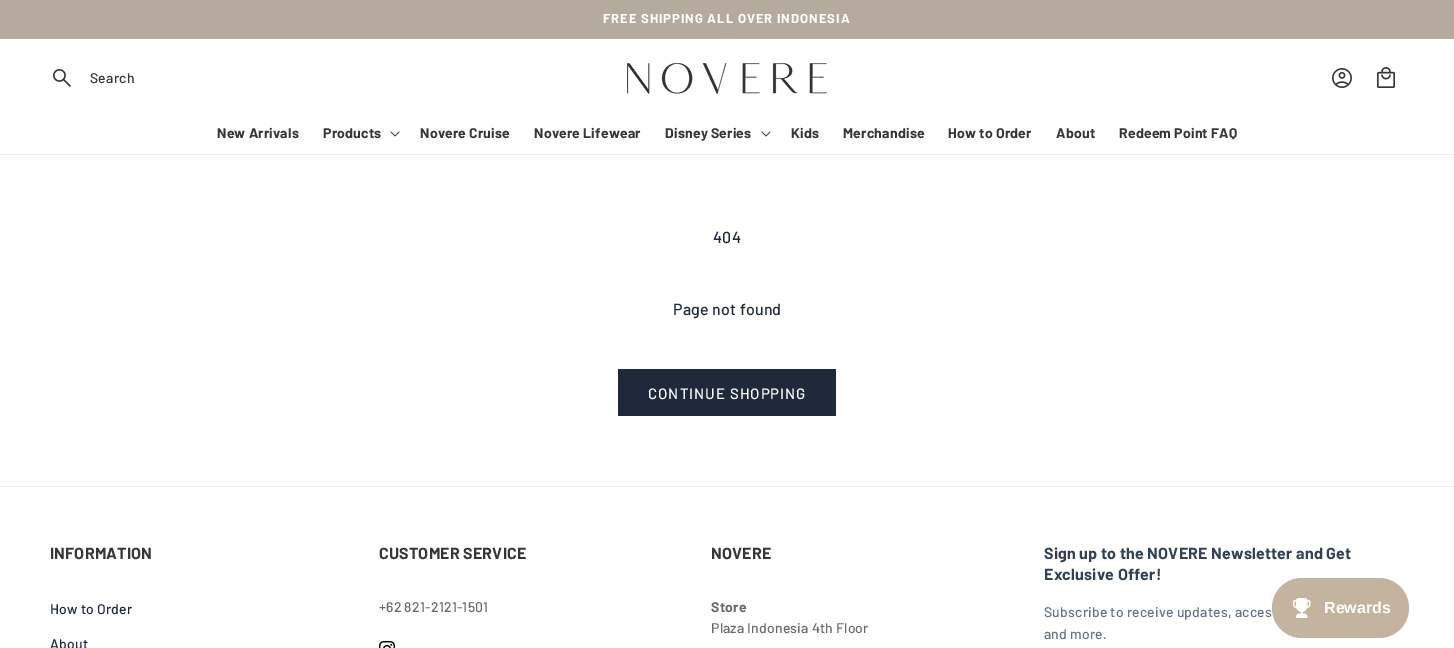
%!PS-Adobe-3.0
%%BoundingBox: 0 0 1454 648
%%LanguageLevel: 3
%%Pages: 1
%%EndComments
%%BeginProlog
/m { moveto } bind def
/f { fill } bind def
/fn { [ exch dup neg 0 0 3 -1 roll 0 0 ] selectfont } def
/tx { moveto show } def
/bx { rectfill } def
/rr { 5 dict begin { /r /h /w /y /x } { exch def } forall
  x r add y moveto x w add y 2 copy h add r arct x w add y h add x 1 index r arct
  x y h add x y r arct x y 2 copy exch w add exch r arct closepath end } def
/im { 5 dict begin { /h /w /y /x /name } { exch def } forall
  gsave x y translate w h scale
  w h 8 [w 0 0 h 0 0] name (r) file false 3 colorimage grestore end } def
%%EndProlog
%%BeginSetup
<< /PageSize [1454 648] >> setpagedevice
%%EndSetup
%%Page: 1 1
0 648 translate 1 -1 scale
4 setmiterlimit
1 setgray
0 0 1454 648 bx
0.706 0.667 0.62 setrgbcolor
0 0 1454 38 bx
0.729 0.694 0.651 setrgbcolor
0 38 1454 1 bx
/Barlow-Bold 13 fn
1 setgray
603 23 m 1 0 (FREE SHIPPING ALL OVER INDONESIA) ashow
0.929 0.933 0.937 setrgbcolor
0 154 1454 1 bx
(image0.raw) 53 69 18 18 im
/Barlow-Medium 14 fn
0.212 setgray
90 83 m 0.2 0 (Search) ashow
(image1.raw) 627 63 200 31 im
(image2.raw) 1332 68 20 20 im
(image3.raw) 1377 67 18 21 im
/Barlow-Bold 14 fn
217 138 m 0.2 0 (New Arrivals) ashow
323 138 m 0.2 0 (Products) ashow
(image4.raw) 390 131 10 6 im
420 138 m 0.2 0 (Novere Cruise) ashow
534 138 m 0.2 0 (Novere Lifewear) ashow
665 138 m 0.2 0 (Disney Series) ashow
(image4.raw) 761 131 10 6 im
791 138 m 0.2 0 (Kids) ashow
843 138 m 0.2 0 (Merchandise) ashow
948 138 m 0.2 0 (How to Order) ashow
1056 138 m 0.2 0 (About) ashow
1119 138 m 0.2 0 (Redeem Point FAQ) ashow
/Barlow-Medium 16 fn
0.118 0.161 0.231 setrgbcolor
713 243 m 0.2 0 (404) ashow
673 315 m 0.2 0 (Page not found) ashow
618 369 218 47 bx
/Barlow-Medium 15 fn
1 setgray
648 399 m 1 0 (CONTINUE SHOPPING) ashow
0.929 0.933 0.937 setrgbcolor
0 486 1454 1 bx
/Barlow-Bold 16 fn
0.212 setgray
50 559 m 0.2 0 (INFORMATION) ashow
/Barlow-Medium 14 fn
0.118 0.161 0.231 setrgbcolor
50 614 m 0.2 0 (How to Order) ashow
50 649 m 0.2 0 (About) ashow
/Barlow-Bold 16 fn
0.212 setgray
379 559 m 0.2 0 (CUSTOMER SERVICE) ashow
/Barlow-Medium 14 fn
0.416 setgray
379 612 m 0.2 0 (+62 821-2121-1501) ashow
(image5.raw) 379 641 16 7 im
/Barlow-Bold 16 fn
0.212 setgray
711 559 m 0.2 0 (NOVERE) ashow
/Barlow-Bold 14 fn
0.416 setgray
711 612 m 0.2 0 (Store) ashow
/Barlow-Medium 14 fn
711 633 m 0.2 0 (Plaza Indonesia 4th Floor) ashow
/Barlow-Bold 16 fn
0.2 0.255 0.333 setrgbcolor
1044 559 m 0.2 0 (Sign up to the NOVERE Newsletter and Get) ashow
1044 580 m 0.2 0 (Exclusive Offer!) ashow
/Barlow-Medium 14 fn
0.392 0.455 0.545 setrgbcolor
1044 617 m 0.2 0 (Subscribe to receive updates, acces) ashow
1044 639 m 0.2 0 (and more.) ashow
0.769 0.706 0.624 setrgbcolor
1272 578 137 60 30 rr f
(image6.raw) 1293 598 18 20 im
/LiberationSans-Bold 16 fn
1 setgray
(Rewards) 1324 613 tx
showpage
%%EOF
